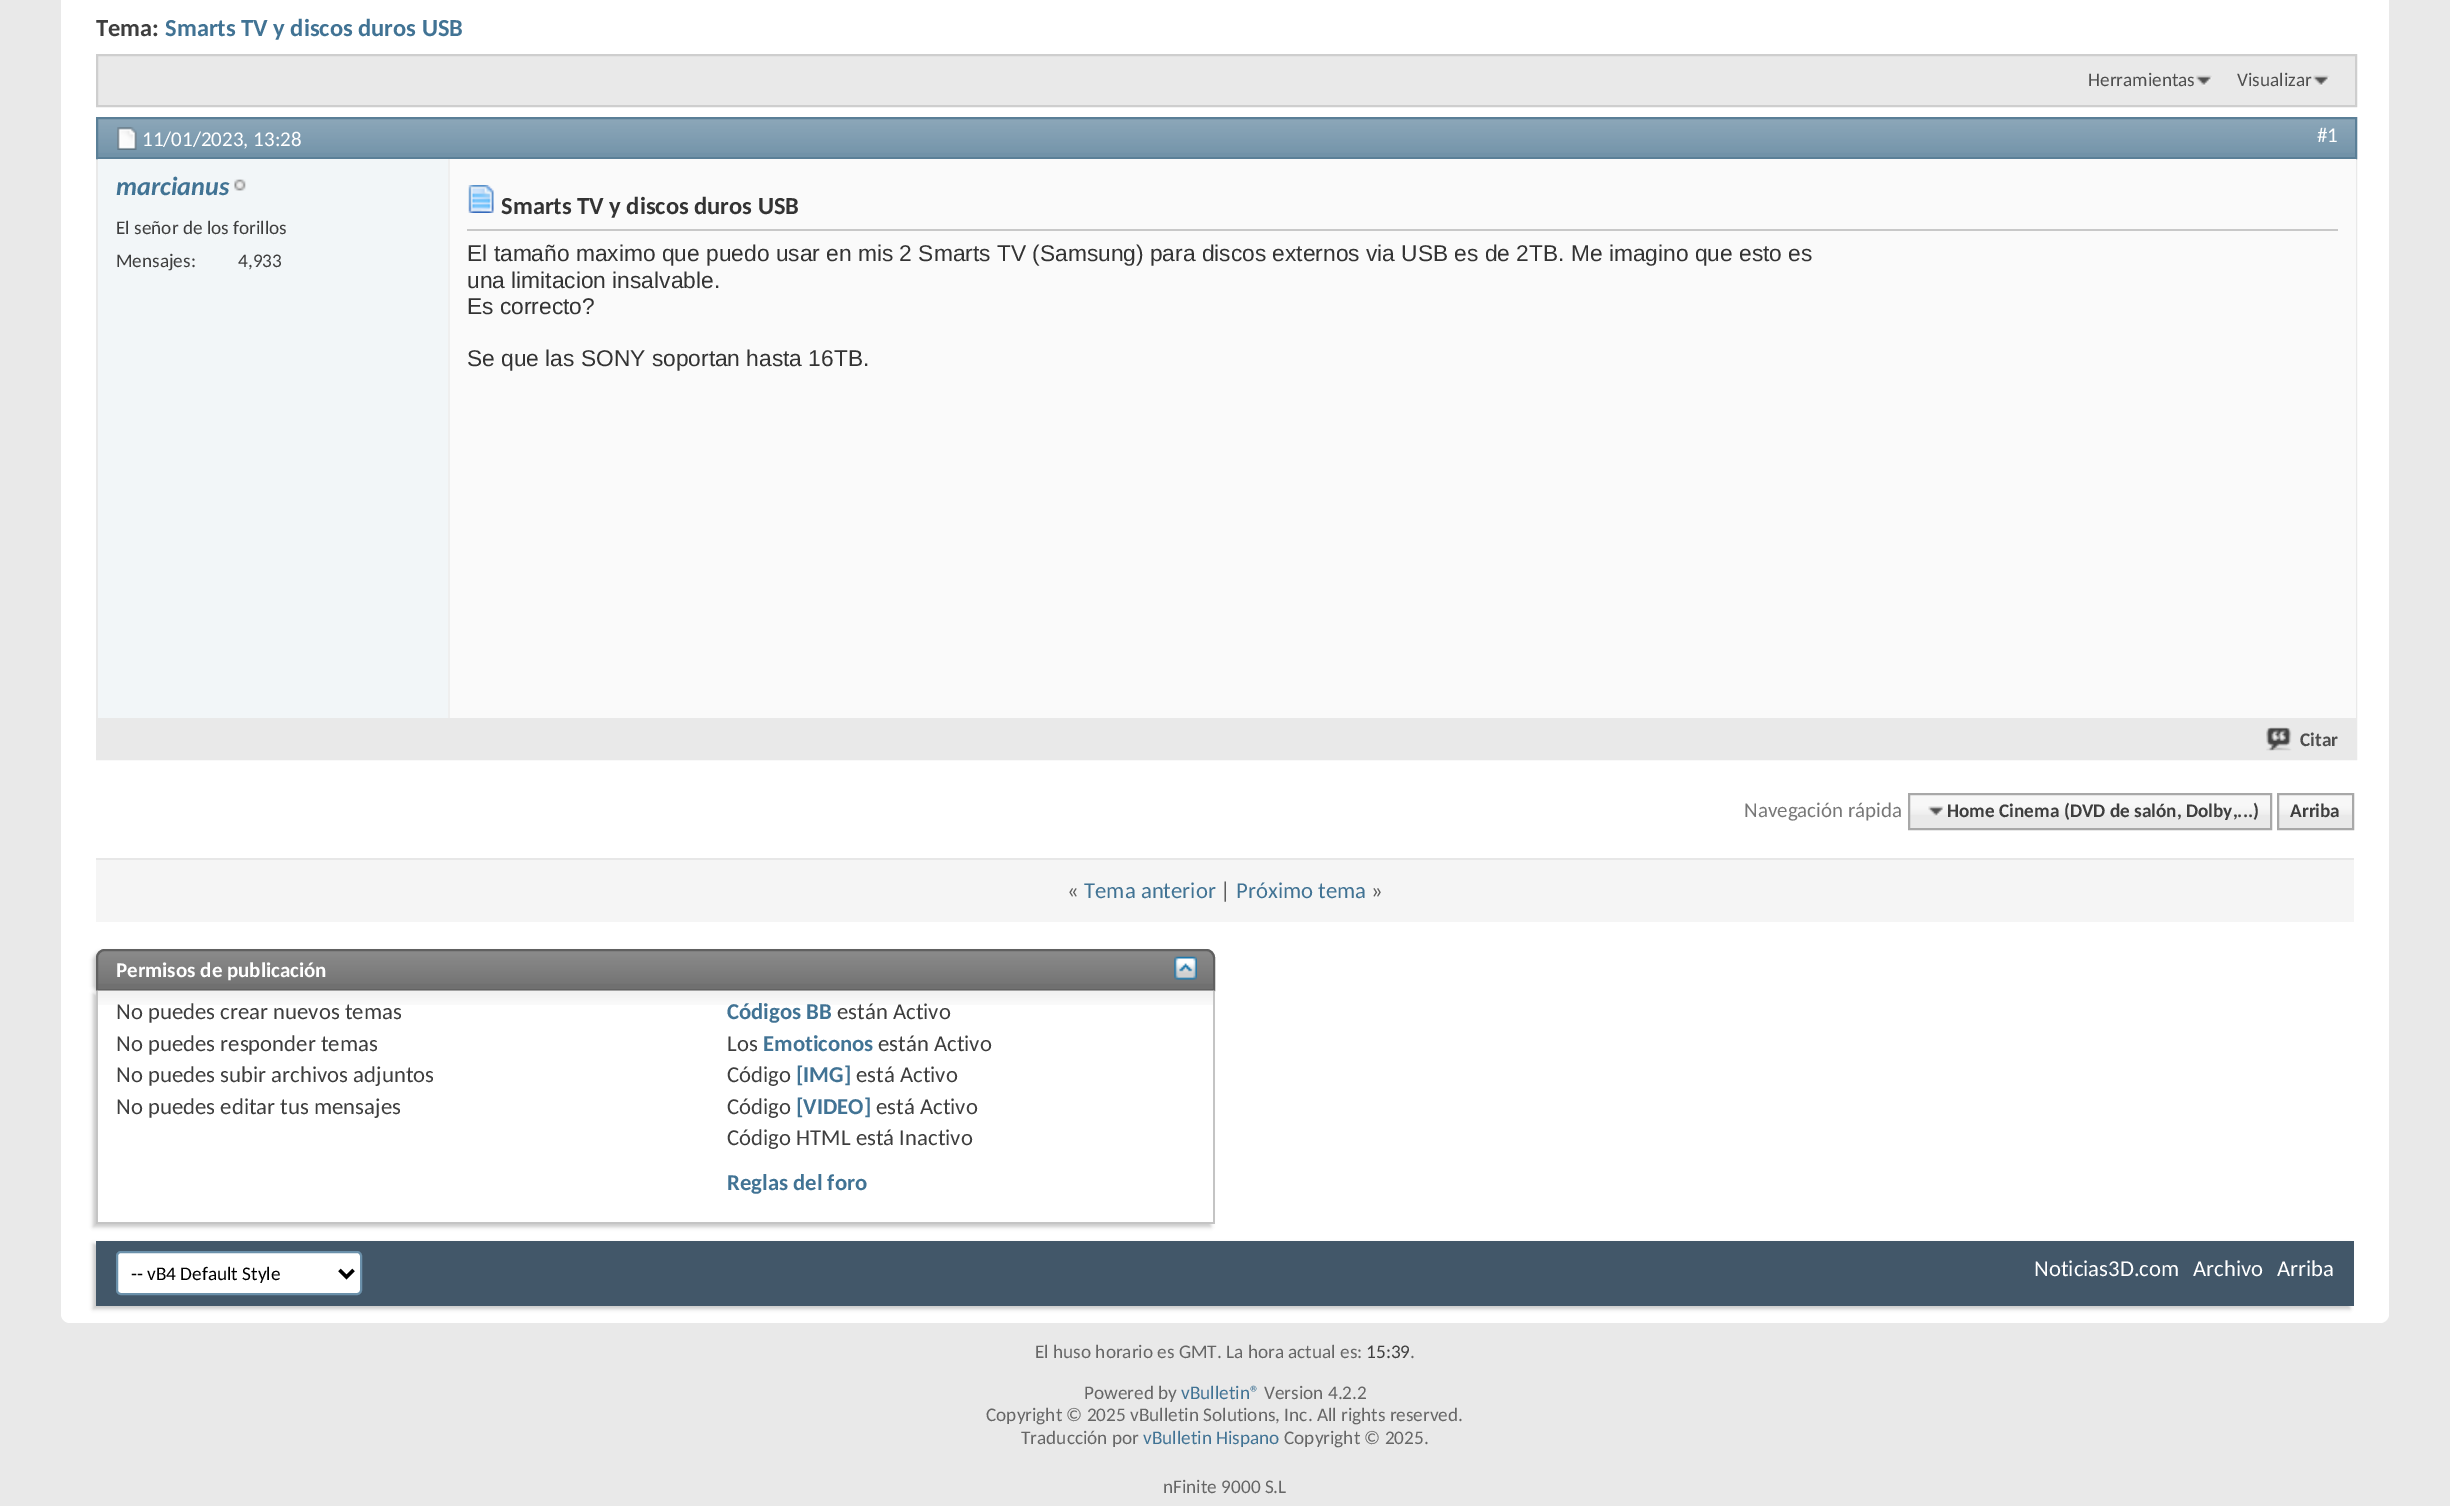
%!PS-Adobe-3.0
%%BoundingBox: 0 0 2450 1506
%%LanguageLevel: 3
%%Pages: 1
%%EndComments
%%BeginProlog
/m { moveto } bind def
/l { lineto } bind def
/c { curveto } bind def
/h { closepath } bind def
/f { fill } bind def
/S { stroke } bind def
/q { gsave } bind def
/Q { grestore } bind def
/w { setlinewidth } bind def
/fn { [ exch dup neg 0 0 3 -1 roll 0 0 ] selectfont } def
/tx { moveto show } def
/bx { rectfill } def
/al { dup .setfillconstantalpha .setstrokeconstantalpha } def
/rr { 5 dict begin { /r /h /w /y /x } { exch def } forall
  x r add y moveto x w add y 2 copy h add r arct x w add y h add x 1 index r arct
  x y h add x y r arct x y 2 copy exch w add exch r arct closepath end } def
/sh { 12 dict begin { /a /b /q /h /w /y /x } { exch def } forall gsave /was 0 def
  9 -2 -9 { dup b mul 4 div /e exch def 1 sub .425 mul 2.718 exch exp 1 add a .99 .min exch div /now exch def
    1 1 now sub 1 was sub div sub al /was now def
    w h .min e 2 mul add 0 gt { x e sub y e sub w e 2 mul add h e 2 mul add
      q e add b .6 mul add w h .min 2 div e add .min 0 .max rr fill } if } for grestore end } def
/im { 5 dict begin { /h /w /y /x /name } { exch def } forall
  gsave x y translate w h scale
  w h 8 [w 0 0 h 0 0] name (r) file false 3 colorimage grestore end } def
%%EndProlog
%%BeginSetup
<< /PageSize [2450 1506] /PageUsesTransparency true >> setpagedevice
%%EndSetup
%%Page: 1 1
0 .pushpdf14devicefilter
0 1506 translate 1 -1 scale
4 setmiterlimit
0.914 setgray
0 0 2450 1506 bx
1 setgray
61 -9 2328 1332 9 rr f
/Carlito-Bold 24.5 fn
0.243 setgray
(Tema:) 96 36 tx
0.255 0.451 0.58 setrgbcolor
(Smarts TV y discos duros USB) 165 36 tx
0.914 setgray
97 55 m 2356 55 l 2356 106 l 97 106 l h q f Q
0.808 setgray
2 w
S
(image0.raw) 2196 75 16 11 im
/Carlito-Regular 19.25 fn
0.306 setgray
(Herramientas) 2088 86 tx
(image1.raw) 2313 75 17 11 im
(Visualizar) 2237 86 tx
0.914 setgray
97 118 2259 641 rectstroke
0.443 0.573 0.659 setrgbcolor
98 119 2257 38 bx
(image2.raw) 98 119 2257 34 im
0.353 0.498 0.592 setrgbcolor
97 118 2259 40 rectstroke
(image3.raw) 117 127 20 23 im
/Carlito-Regular 21 fn
1 setgray
(11/01/2023, 13:28) 142 146 tx
(#1) 2317 142 tx
0.949 0.965 0.973 setrgbcolor
98 159 350 559 bx
/Carlito-BoldItalic 26.25 fn
0.255 0.451 0.58 setrgbcolor
(marcianus) 116 195 tx
(image4.raw) 234 179 12 12 im
/Carlito-Regular 19.25 fn
0.243 setgray
(El señor de los forillos) 116 234 tx
(Mensajes:) 116 267 tx
(4,933) 238 267 tx
0.98 setgray
450 159 1906 559 bx
0.937 setgray
448 159 2 559 bx
0.784 setgray
467 229 1871 2 bx
(image5.raw) 468 185 26 28 im
/Carlito-Bold 24.5 fn
0.2 setgray
(Smarts TV y discos duros USB) 501 214 tx
/LiberationSans-Regular 22.75 fn
(El tamaño maximo que puedo usar en mis 2 Smarts TV \(Samsung\) para discos externos via USB es de 2TB. Me imagino que esto es) 467 261 tx
(una limitacion insalvable.) 467 288 tx
(Es correcto?) 467 314 tx
(Se que las SONY soportan hasta 16TB.) 467 366 tx
0.914 setgray
98 718 2257 40 bx
(image6.raw) 2266 727 26 24 im
/Carlito-Bold 19.25 fn
0.306 setgray
(Citar) 2300 746 tx
/Carlito-Regular 21 fn
0.467 setgray
(Navegación rápida) 1744 817 tx
0.914 setgray
1910 795 360 33 bx
(image7.raw) 1910 795 360 20 im
2279 795 73 33 bx
(image8.raw) 2279 795 73 20 im
0.659 setgray
1909 794 362 35 rectstroke
(image9.raw) 1928 806 16 11 im
/Carlito-Bold 19.25 fn
0.243 setgray
(Home Cinema \(DVD de salón, Dolby,...\)) 1947 817 tx
0.659 setgray
2278 794 75 35 rectstroke
0.243 setgray
(Arriba) 2290 817 tx
0.961 setgray
96 860 2258 62 bx
0.906 setgray
96 858 2258 2 bx
/Carlito-Regular 22.75 fn
0.365 setgray
(«) 1067 898 tx
0.255 0.451 0.58 setrgbcolor
(Tema anterior) 1084 898 tx
0.365 setgray
(|) 1220 898 tx
0.255 0.451 0.58 setrgbcolor
(Próximo tema) 1236 898 tx
0.365 setgray
(») 1371 898 tx
0.784 setgray
93 952 1118 42 9 2 1 sh
0.439 setgray
105 949 m 1206 949 l 1211 949 1215 953 1215 958 c 1215 991 l 96 991 l 96 958 l 96 953 100 949 105 949 c h f
(image10.raw) 96 949 1119 35 im
0.376 setgray
105 950 m 1206 950 l 1210.5 950 1214 953.5 1214 958 c 1214 990 l 97 990 l 97 958 l 97 953.5 100.5 950 105 950 c h S
/Carlito-Bold 21 fn
1 setgray
(Permisos de publicación) 116 977 tx
(image11.raw) 1174 956 23 24 im
0.784 setgray
93 994 1118 233 0 2 1 sh
1 setgray
98 991 1115 231 bx
(image12.raw) 96 990 1119 15 im
0.769 setgray
1213 991 2 232 bx
96 1222 1119 2 bx
96 991 2 232 bx
/Carlito-Regular 22.75 fn
0.243 setgray
(No puedes crear nuevos temas) 116 1019 tx
(No puedes responder temas) 116 1051 tx
(No puedes subir archivos adjuntos) 116 1082 tx
(No puedes editar tus mensajes) 116 1114 tx
/Carlito-Bold 22.75 fn
0.255 0.451 0.58 setrgbcolor
(Códigos BB) 727 1019 tx
/Carlito-Regular 22.75 fn
0.243 setgray
(están Activo) 837 1019 tx
(Los) 727 1051 tx
/Carlito-Bold 22.75 fn
0.255 0.451 0.58 setrgbcolor
(Emoticonos) 763 1051 tx
/Carlito-Regular 22.75 fn
0.243 setgray
(están Activo) 878 1051 tx
(Código) 727 1082 tx
/Carlito-Bold 22.75 fn
0.255 0.451 0.58 setrgbcolor
([IMG]) 796 1082 tx
/Carlito-Regular 22.75 fn
0.243 setgray
(está Activo) 856 1082 tx
(Código) 727 1114 tx
/Carlito-Bold 22.75 fn
0.255 0.451 0.58 setrgbcolor
([VIDEO]) 796 1114 tx
/Carlito-Regular 22.75 fn
0.243 setgray
(está Activo) 876 1114 tx
(Código HTML está Inactivo) 727 1145 tx
/Carlito-Bold 22.75 fn
0.255 0.451 0.58 setrgbcolor
(Reglas del foro) 727 1190 tx
0.784 setgray
93 1244 2257 65 0 2 1 sh
0.259 0.341 0.412 setrgbcolor
96 1241 2258 65 bx
1 setgray
117 1252 244 42 4 rr q f Q
0.42 0.569 0.671 setrgbcolor
S
0 setgray
3.5 w
339.5 1270 m 346.5 1277 l 353.5 1270 l S
/Carlito-Regular 19.25 fn
(-- vB4 Default Style) 131 1280 tx
/Carlito-Regular 22.75 fn
1 setgray
(Noticias3D.com) 2034 1276 tx
(Archivo) 2193 1276 tx
(Arriba) 2277 1276 tx
/Carlito-Regular 19.25 fn
0.4 setgray
(El huso horario es GMT. La hora actual es:) 1035 1358 tx
0.243 setgray
(15:39) 1366 1358 tx
0.4 setgray
(.) 1410 1358 tx
(Powered by) 1084 1399 tx
0.255 0.451 0.58 setrgbcolor
(vBulletin®) 1181 1399 tx
0.4 setgray
(Version 4.2.2) 1264 1399 tx
(Copyright © 2025 vBulletin Solutions, Inc. All rights reserved.) 986 1421 tx
(Traducción por) 1021 1444 tx
0.255 0.451 0.58 setrgbcolor
(vBulletin Hispano) 1143 1444 tx
0.4 setgray
(Copyright © 2025.) 1284 1444 tx
(nFinite 9000 S.L) 1163 1493 tx
.poppdf14devicefilter showpage
%%EOF
